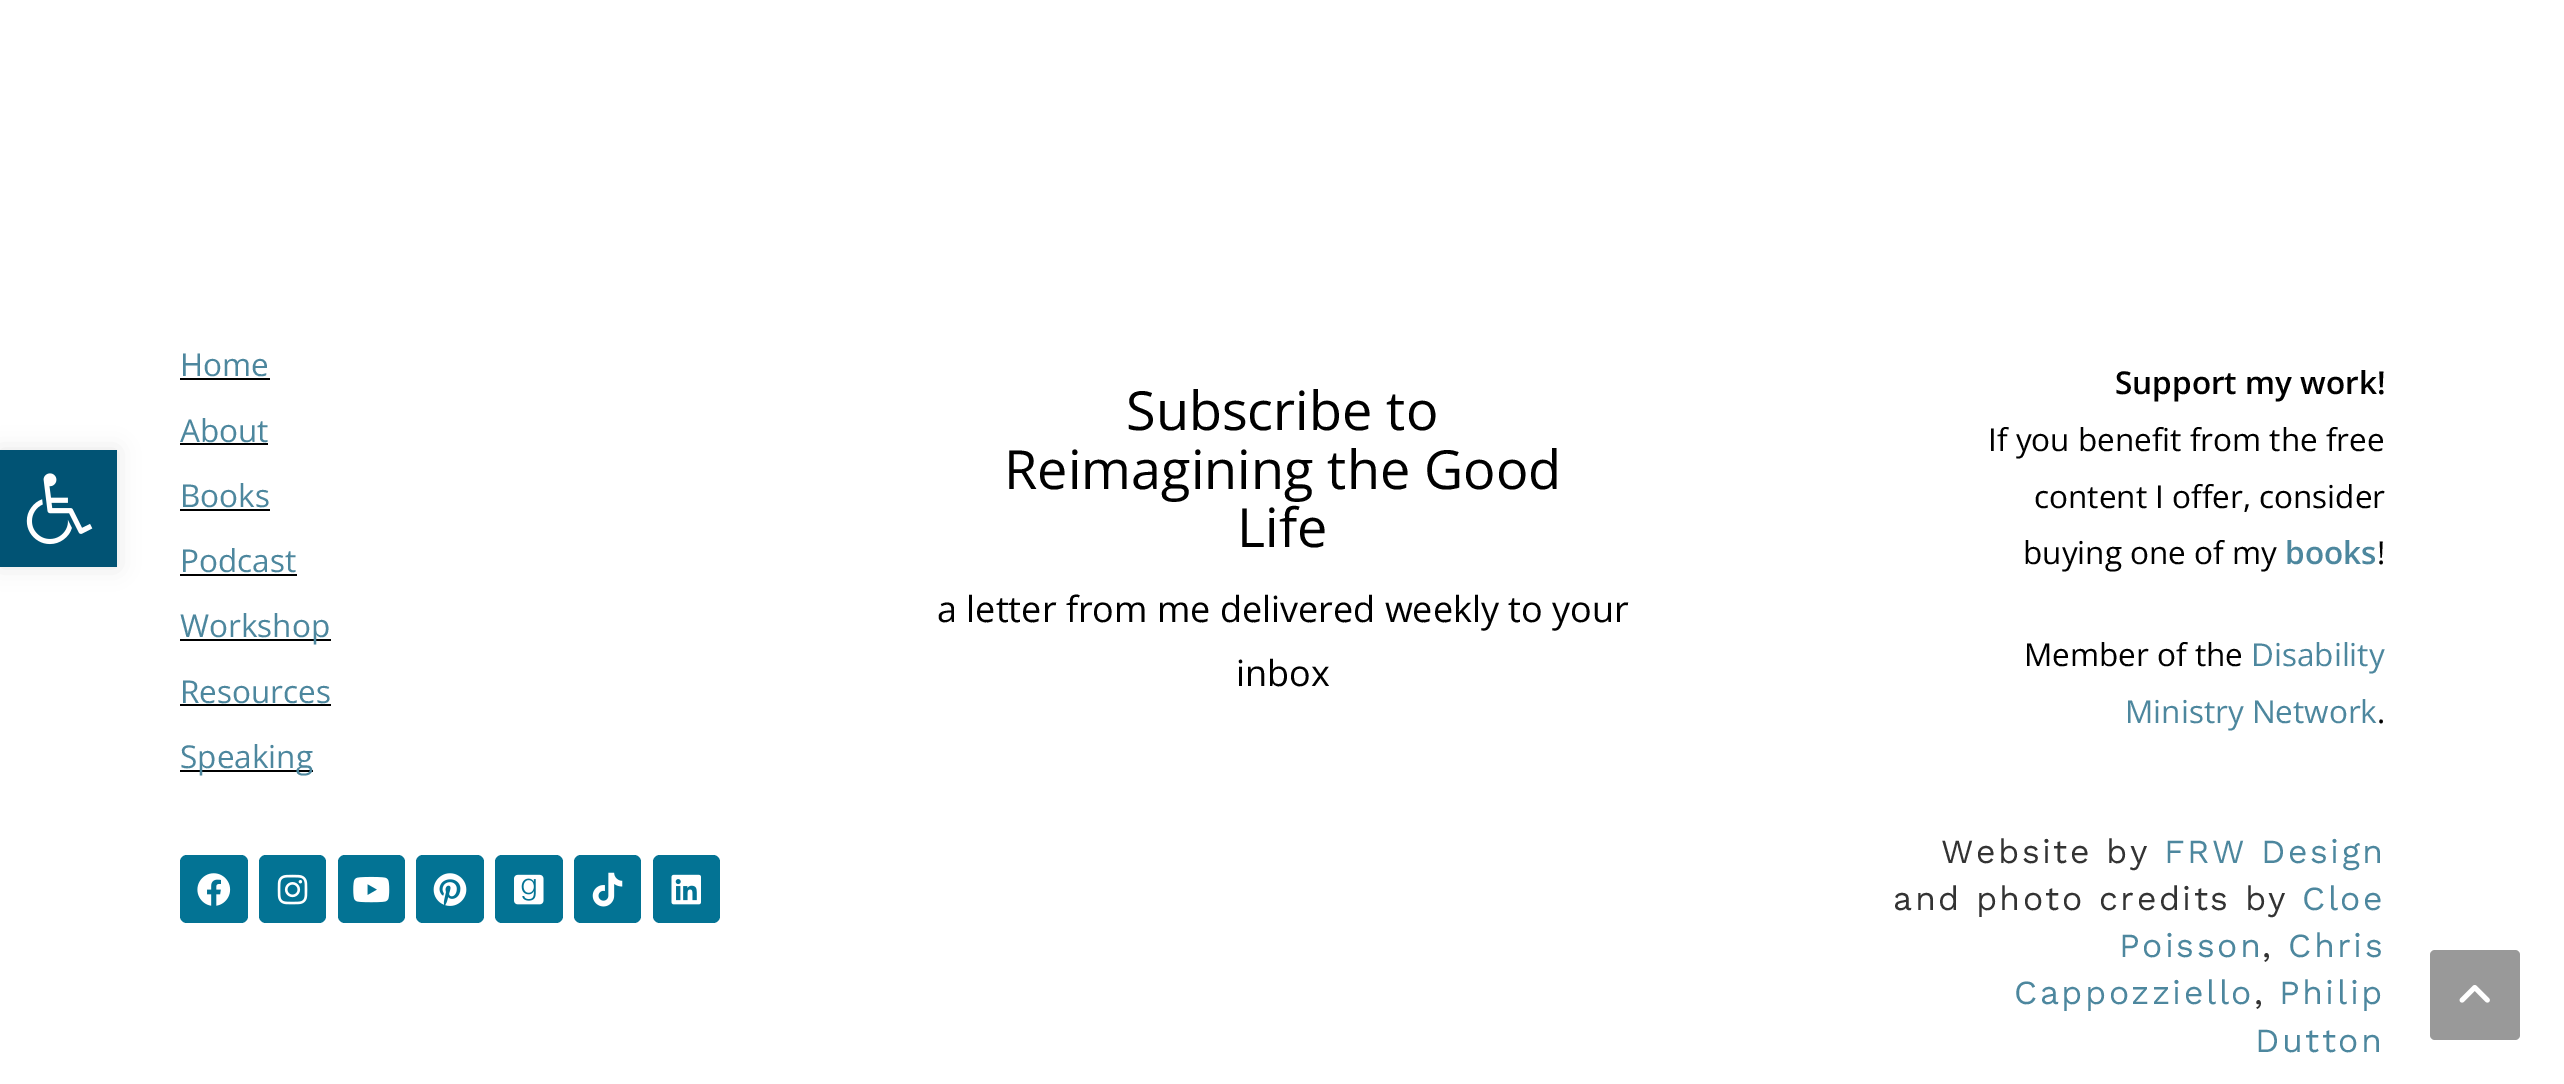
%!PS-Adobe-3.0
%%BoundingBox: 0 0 2564 1084
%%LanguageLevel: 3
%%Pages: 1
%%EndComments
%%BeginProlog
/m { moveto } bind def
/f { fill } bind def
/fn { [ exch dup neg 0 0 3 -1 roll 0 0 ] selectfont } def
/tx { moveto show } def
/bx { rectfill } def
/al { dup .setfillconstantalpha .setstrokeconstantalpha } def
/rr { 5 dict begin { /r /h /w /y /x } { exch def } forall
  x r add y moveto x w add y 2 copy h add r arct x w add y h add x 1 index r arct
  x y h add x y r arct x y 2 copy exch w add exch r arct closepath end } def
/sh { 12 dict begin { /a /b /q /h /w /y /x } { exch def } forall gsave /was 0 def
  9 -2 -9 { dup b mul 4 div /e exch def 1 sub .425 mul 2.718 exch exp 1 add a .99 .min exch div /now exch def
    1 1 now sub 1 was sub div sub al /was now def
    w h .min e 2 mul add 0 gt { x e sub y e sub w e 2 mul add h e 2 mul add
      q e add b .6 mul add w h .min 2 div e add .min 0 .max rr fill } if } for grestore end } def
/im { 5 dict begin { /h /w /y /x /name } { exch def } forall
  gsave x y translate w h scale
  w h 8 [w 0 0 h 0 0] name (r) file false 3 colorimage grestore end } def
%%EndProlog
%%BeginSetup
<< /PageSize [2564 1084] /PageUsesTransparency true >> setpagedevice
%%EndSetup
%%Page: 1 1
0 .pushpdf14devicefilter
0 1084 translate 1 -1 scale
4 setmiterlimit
1 setgray
0 0 2564 1084 bx
0 setgray
0 450 117 117 0 11 0.1 sh
0.004 0.325 0.455 setrgbcolor
0 450 117 117 bx
(image0.raw) 26 473 67 72 im
/OpenSans-Regular 31.5 fn
0.302 0.529 0.62 setrgbcolor
(Home) 180 376 tx
0 setgray
180 378 90 2 bx
0.302 0.529 0.62 setrgbcolor
(About) 180 442 tx
0 setgray
180 443 88 2 bx
0.302 0.529 0.62 setrgbcolor
(Books) 180 507 tx
0 setgray
180 509 90 2 bx
0.302 0.529 0.62 setrgbcolor
(Podcast) 180 572 tx
0 setgray
180 574 117 2 bx
180 639 151 2 bx
0.302 0.529 0.62 setrgbcolor
(Workshop) 180 637 tx
(Resources) 180 703 tx
0 setgray
180 704 151 2 bx
180 770 133 2 bx
0.302 0.529 0.62 setrgbcolor
(Speaking) 180 768 tx
0.012 0.451 0.58 setrgbcolor
180 855 68 68 7 rr f
(image1.raw) 197 873 34 33 im
259 855 67 68 7 rr f
(image2.raw) 277 874 31 31 im
338 855 67 68 7 rr f
(image3.raw) 353 876 37 27 im
416 855 68 68 7 rr f
(image4.raw) 433 873 34 33 im
495 855 68 68 7 rr f
(image5.raw) 514 874 30 31 im
574 855 67 68 7 rr f
(image6.raw) 592 872 31 35 im
653 855 67 68 7 rr f
(image7.raw) 671 874 30 31 im
/OpenSans-Regular 54 fn
0 setgray
(Subscribe to) 1126 430 tx
(Reimagining the Good) 1004 489 tx
(Life) 1237 547 tx
/OpenSans-Regular 36 fn
(a letter from me delivered weekly to your) 937 622 tx
(inbox) 1236 686 tx
/OpenSans-SemiBold 31.5 fn
(Support my work!) 2115 394 tx
/OpenSans-Regular 31.5 fn
(If you benefit from the free) 1988 451 tx
(content I offer, consider) 2034 508 tx
(buying one of my) 2023 564 tx
/OpenSans-SemiBold 31.5 fn
0.302 0.529 0.62 setrgbcolor
(books) 2285 564 tx
/OpenSans-Regular 31.5 fn
0 setgray
(!) 2377 564 tx
(Member of the) 2024 666 tx
0.302 0.529 0.62 setrgbcolor
(Disability) 2251 666 tx
(Ministry Network) 2125 723 tx
0 setgray
(.) 2377 723 tx
/WorkSans-Regular 33.75 fn
0.2 setgray
1941 863 m 2.5 0 (Website by) ashow
0.302 0.529 0.62 setrgbcolor
2164 863 m 2.5 0 (FRW Design) ashow
0.2 setgray
1893 910 m 2.5 0 (and photo credits by) ashow
0.302 0.529 0.62 setrgbcolor
2302 910 m 2.5 0 (Cloe) ashow
2119 957 m 2.5 0 (Poisson) ashow
0.2 setgray
2262 957 m 2.5 0 (,) ashow
0.302 0.529 0.62 setrgbcolor
2288 957 m 2.5 0 (Chris) ashow
2014 1004 m 2.5 0 (Cappozziello) ashow
0.2 setgray
2254 1004 m 2.5 0 (,) ashow
0.302 0.529 0.62 setrgbcolor
2279 1004 m 2.5 0 (Philip) ashow
2255 1052 m 2.5 0 (Dutton) ashow
0.6 setgray
2430 950 90 90 5 rr f
(image8.raw) 2459 985 31 18 im
.poppdf14devicefilter showpage
%%EOF
